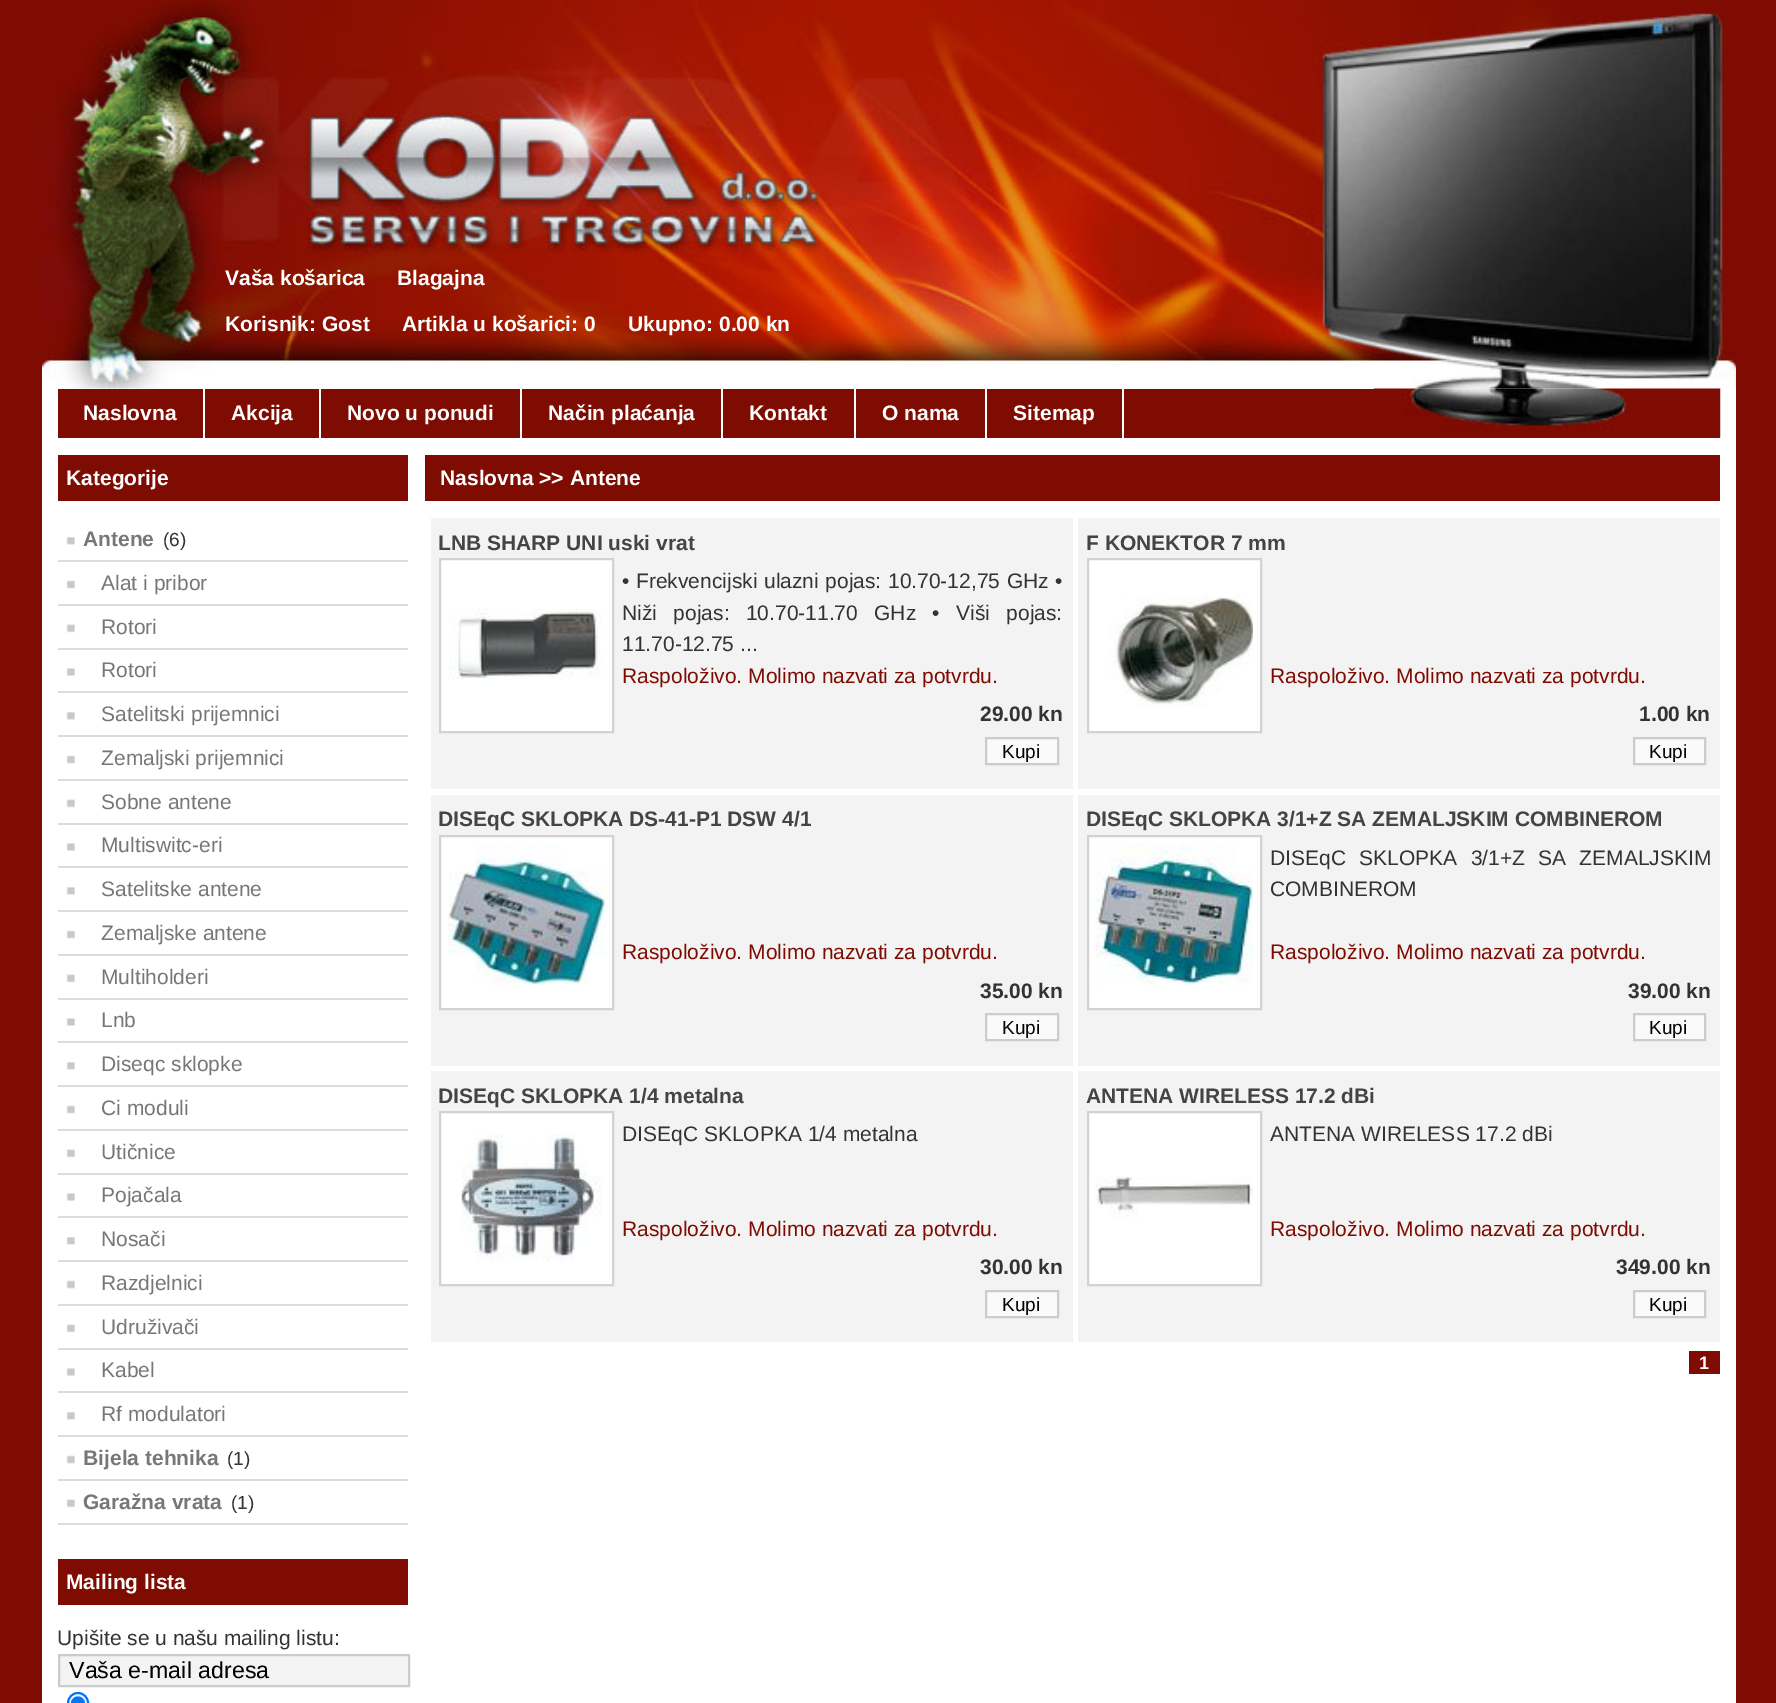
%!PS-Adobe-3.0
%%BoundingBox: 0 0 1776 1703
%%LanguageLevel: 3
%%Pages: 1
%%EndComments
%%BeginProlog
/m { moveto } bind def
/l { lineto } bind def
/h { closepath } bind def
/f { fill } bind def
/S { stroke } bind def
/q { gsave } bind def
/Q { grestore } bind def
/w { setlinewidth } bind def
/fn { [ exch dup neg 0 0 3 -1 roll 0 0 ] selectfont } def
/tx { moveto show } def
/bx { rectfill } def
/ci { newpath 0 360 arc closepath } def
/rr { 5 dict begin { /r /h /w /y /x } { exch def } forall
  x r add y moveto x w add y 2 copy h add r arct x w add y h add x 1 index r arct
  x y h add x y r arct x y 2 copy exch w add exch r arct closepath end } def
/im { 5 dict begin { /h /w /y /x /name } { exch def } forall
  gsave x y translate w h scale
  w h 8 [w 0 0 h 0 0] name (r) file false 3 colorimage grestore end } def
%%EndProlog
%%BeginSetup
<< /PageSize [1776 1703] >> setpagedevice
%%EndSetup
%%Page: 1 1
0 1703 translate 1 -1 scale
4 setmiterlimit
0.494 0.047 0.008 setrgbcolor
0 0 1776 1703 bx
1 setgray
42 388 1694 1315 bx
(image0.raw) 42 0 1694 389 im
/LiberationSans-Bold 21 fn
(Vaša košarica) 225 285 tx
(Blagajna) 397 285 tx
(Korisnik: Gost) 225 331 tx
(Artikla u košarici: 0) 402 331 tx
(Ukupno: 0.00 kn) 628 331 tx
0.494 0.047 0.008 setrgbcolor
58 389 1662 49 bx
(image1.raw) 1373 388 348 50 im
1 setgray
203 389 2 49 bx
(Naslovna) 83 420 tx
319 389 2 49 bx
(Akcija) 231 420 tx
520 389 2 49 bx
(Novo u ponudi) 347 420 tx
721 389 2 49 bx
(Način plaćanja) 548 420 tx
854 389 2 49 bx
(Kontakt) 749 420 tx
985 389 2 49 bx
(O nama) 882 420 tx
1122 389 2 49 bx
(Sitemap) 1013 420 tx
0.494 0.047 0.008 setrgbcolor
58 455 350 46 bx
1 setgray
(Kategorije) 66 485 tx
(image2.raw) 66 537 9 8 im
0.863 setgray
58 560 350 2 bx
0.467 setgray
(Antene) 83 546 tx
/LiberationSans-Regular 19 fn
0.2 setgray
(\(6\)) 163 546 tx
(image3.raw) 66 580 9 9 im
0.863 setgray
58 604 350 2 bx
/LiberationSans-Regular 21 fn
0.467 setgray
(Alat i pribor) 101 590 tx
(image4.raw) 66 624 9 9 im
0.863 setgray
58 648 350 2 bx
0.467 setgray
(Rotori) 101 634 tx
(image5.raw) 66 668 9 8 im
0.863 setgray
58 691 350 2 bx
0.467 setgray
(Rotori) 101 677 tx
(image2.raw) 66 712 9 8 im
0.863 setgray
58 735 350 2 bx
0.467 setgray
(Satelitski prijemnici) 101 721 tx
(image3.raw) 66 755 9 9 im
0.863 setgray
58 779 350 2 bx
0.467 setgray
(Zemaljski prijemnici) 101 765 tx
(image4.raw) 66 799 9 9 im
0.863 setgray
58 823 350 2 bx
0.467 setgray
(Sobne antene) 101 809 tx
(image5.raw) 66 843 9 8 im
0.863 setgray
58 866 350 2 bx
0.467 setgray
(Multiswitc-eri) 101 852 tx
(image2.raw) 66 887 9 8 im
0.863 setgray
58 910 350 2 bx
0.467 setgray
(Satelitske antene) 101 896 tx
(image3.raw) 66 930 9 9 im
0.863 setgray
58 954 350 2 bx
0.467 setgray
(Zemaljske antene) 101 940 tx
(image4.raw) 66 974 9 9 im
0.863 setgray
58 998 350 2 bx
0.467 setgray
(Multiholderi) 101 984 tx
(image5.raw) 66 1018 9 8 im
0.863 setgray
58 1041 350 2 bx
0.467 setgray
(Lnb) 101 1027 tx
(image2.raw) 66 1062 9 8 im
0.863 setgray
58 1085 350 2 bx
0.467 setgray
(Diseqc sklopke) 101 1071 tx
(image3.raw) 66 1105 9 9 im
0.863 setgray
58 1129 350 2 bx
0.467 setgray
(Ci moduli) 101 1115 tx
(image4.raw) 66 1149 9 9 im
0.863 setgray
58 1173 350 2 bx
0.467 setgray
(Utičnice) 101 1159 tx
(image5.raw) 66 1193 9 8 im
0.863 setgray
58 1216 350 2 bx
0.467 setgray
(Pojačala) 101 1202 tx
(image2.raw) 66 1237 9 8 im
0.863 setgray
58 1260 350 2 bx
0.467 setgray
(Nosači) 101 1246 tx
(image3.raw) 66 1280 9 9 im
0.863 setgray
58 1304 350 2 bx
0.467 setgray
(Razdjelnici) 101 1290 tx
(image4.raw) 66 1324 9 9 im
0.863 setgray
58 1348 350 2 bx
0.467 setgray
(Udruživači) 101 1334 tx
(image5.raw) 66 1368 9 8 im
0.863 setgray
58 1391 350 2 bx
0.467 setgray
(Kabel) 101 1377 tx
(image2.raw) 66 1412 9 8 im
0.863 setgray
58 1435 350 2 bx
0.467 setgray
(Rf modulatori) 101 1421 tx
(image3.raw) 66 1455 9 9 im
0.863 setgray
58 1479 350 2 bx
/LiberationSans-Bold 21 fn
0.467 setgray
(Bijela tehnika) 83 1465 tx
/LiberationSans-Regular 19 fn
0.2 setgray
(\(1\)) 227 1465 tx
(image4.raw) 66 1499 9 9 im
0.863 setgray
58 1523 350 2 bx
/LiberationSans-Bold 21 fn
0.467 setgray
(Garažna vrata) 83 1509 tx
/LiberationSans-Regular 19 fn
0.2 setgray
(\(1\)) 231 1509 tx
0.494 0.047 0.008 setrgbcolor
58 1559 350 46 bx
/LiberationSans-Bold 21 fn
1 setgray
(Mailing lista) 66 1589 tx
/LiberationSans-Regular 21 fn
0.2 setgray
(Upišite se u našu mailing listu:) 57 1645 tx
0.953 setgray
59 1655 m 409 1655 l 409 1686 l 59 1686 l h q f Q
0.8 setgray
2 w
S
/LiberationSans-Regular 23.25 fn
0 setgray
(Vaša e-mail adresa) 69 1678 tx
0 0.459 1 setrgbcolor
68 1693 20 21 10 rr S
78 1703.5 7 ci f
0.494 0.047 0.008 setrgbcolor
425 455 1295 46 bx
/LiberationSans-Bold 21 fn
1 setgray
(Naslovna >> Antene) 440 485 tx
0.953 setgray
431 518 642 271 bx
0.267 setgray
(LNB SHARP UNI uski vrat) 438 550 tx
1 setgray
440 559 m 613 559 l 613 732 l 440 732 l h q f Q
0.824 setgray
S
(image6.raw) 448 608 154 71 im
/LiberationSans-Regular 21 fn
0.2 setgray
622 588 m 0.75 0 32 (• Frekvencijski ulazni pojas: 10.70-12,75 GHz •) widthshow
622 620 m 10.5 0 32 (Niži pojas: 10.70-11.70 GHz • Viši pojas:) widthshow
(11.70-12.75 ...) 622 651 tx
0.494 0.047 0.008 setrgbcolor
(Raspoloživo. Molimo nazvati za potvrdu.) 622 683 tx
/LiberationSans-Bold 21 fn
0.2 setgray
(29.00 kn) 980 721 tx
0.98 setgray
986 738 m 1058 738 l 1058 764 l 986 764 l h q f Q
0.8 setgray
S
/LiberationSans-Regular 19 fn
0 setgray
(Kupi) 1002 758 tx
0.953 setgray
1078 518 642 271 bx
/LiberationSans-Bold 21 fn
0.267 setgray
(F KONEKTOR 7 mm) 1086 550 tx
1 setgray
1088 559 m 1261 559 l 1261 732 l 1088 732 l h q f Q
0.824 setgray
S
(image7.raw) 1110 595 143 112 im
/LiberationSans-Regular 21 fn
0.494 0.047 0.008 setrgbcolor
(Raspoloživo. Molimo nazvati za potvrdu.) 1270 683 tx
/LiberationSans-Bold 21 fn
0.2 setgray
(1.00 kn) 1639 721 tx
0.98 setgray
1634 738 m 1705 738 l 1705 764 l 1634 764 l h q f Q
0.8 setgray
S
/LiberationSans-Regular 19 fn
0 setgray
(Kupi) 1649 758 tx
0.953 setgray
431 795 642 271 bx
/LiberationSans-Bold 21 fn
0.267 setgray
(DISEqC SKLOPKA DS-41-P1 DSW 4/1) 438 826 tx
1 setgray
440 836 m 613 836 l 613 1009 l 440 1009 l h q f Q
0.824 setgray
S
(image8.raw) 448 843 158 143 im
/LiberationSans-Regular 21 fn
0.494 0.047 0.008 setrgbcolor
(Raspoloživo. Molimo nazvati za potvrdu.) 622 959 tx
/LiberationSans-Bold 21 fn
0.2 setgray
(35.00 kn) 980 998 tx
0.98 setgray
986 1014 m 1058 1014 l 1058 1040 l 986 1040 l h q f Q
0.8 setgray
S
/LiberationSans-Regular 19 fn
0 setgray
(Kupi) 1002 1034 tx
0.953 setgray
1078 795 642 271 bx
/LiberationSans-Bold 21 fn
0.267 setgray
(DISEqC SKLOPKA 3/1+Z SA ZEMALJSKIM COMBINEROM) 1086 826 tx
1 setgray
1088 836 m 1261 836 l 1261 1009 l 1088 1009 l h q f Q
0.824 setgray
S
(image9.raw) 1095 843 158 143 im
/LiberationSans-Regular 21 fn
0.2 setgray
1270 865 m 7.5 0 32 (DISEqC SKLOPKA 3/1+Z SA ZEMALJSKIM) widthshow
(COMBINEROM) 1270 896 tx
0.494 0.047 0.008 setrgbcolor
(Raspoloživo. Molimo nazvati za potvrdu.) 1270 959 tx
/LiberationSans-Bold 21 fn
0.2 setgray
(39.00 kn) 1628 998 tx
0.98 setgray
1634 1014 m 1705 1014 l 1705 1040 l 1634 1040 l h q f Q
0.8 setgray
S
/LiberationSans-Regular 19 fn
0 setgray
(Kupi) 1649 1034 tx
0.953 setgray
431 1071 642 271 bx
/LiberationSans-Bold 21 fn
0.267 setgray
(DISEqC SKLOPKA 1/4 metalna) 438 1103 tx
1 setgray
440 1112 m 613 1112 l 613 1285 l 440 1285 l h q f Q
0.824 setgray
S
(image10.raw) 461 1133 141 128 im
/LiberationSans-Regular 21 fn
0.2 setgray
(DISEqC SKLOPKA 1/4 metalna) 622 1141 tx
0.494 0.047 0.008 setrgbcolor
(Raspoloživo. Molimo nazvati za potvrdu.) 622 1236 tx
/LiberationSans-Bold 21 fn
0.2 setgray
(30.00 kn) 980 1274 tx
0.98 setgray
986 1291 m 1058 1291 l 1058 1317 l 986 1317 l h q f Q
0.8 setgray
S
/LiberationSans-Regular 19 fn
0 setgray
(Kupi) 1002 1311 tx
0.953 setgray
1078 1071 642 271 bx
/LiberationSans-Bold 21 fn
0.267 setgray
(ANTENA WIRELESS 17.2 dBi) 1086 1103 tx
1 setgray
1088 1112 m 1261 1112 l 1261 1285 l 1088 1285 l h q f Q
0.824 setgray
S
(image11.raw) 1095 1176 158 42 im
/LiberationSans-Regular 21 fn
0.2 setgray
(ANTENA WIRELESS 17.2 dBi) 1270 1141 tx
0.494 0.047 0.008 setrgbcolor
(Raspoloživo. Molimo nazvati za potvrdu.) 1270 1236 tx
/LiberationSans-Bold 21 fn
0.2 setgray
(349.00 kn) 1616 1274 tx
0.98 setgray
1634 1291 m 1705 1291 l 1705 1317 l 1634 1317 l h q f Q
0.8 setgray
S
/LiberationSans-Regular 19 fn
0 setgray
(Kupi) 1649 1311 tx
0.494 0.047 0.008 setrgbcolor
1689 1351 31 23 bx
/LiberationSans-Bold 18 fn
1 setgray
(1) 1699 1369 tx
showpage
%%EOF
